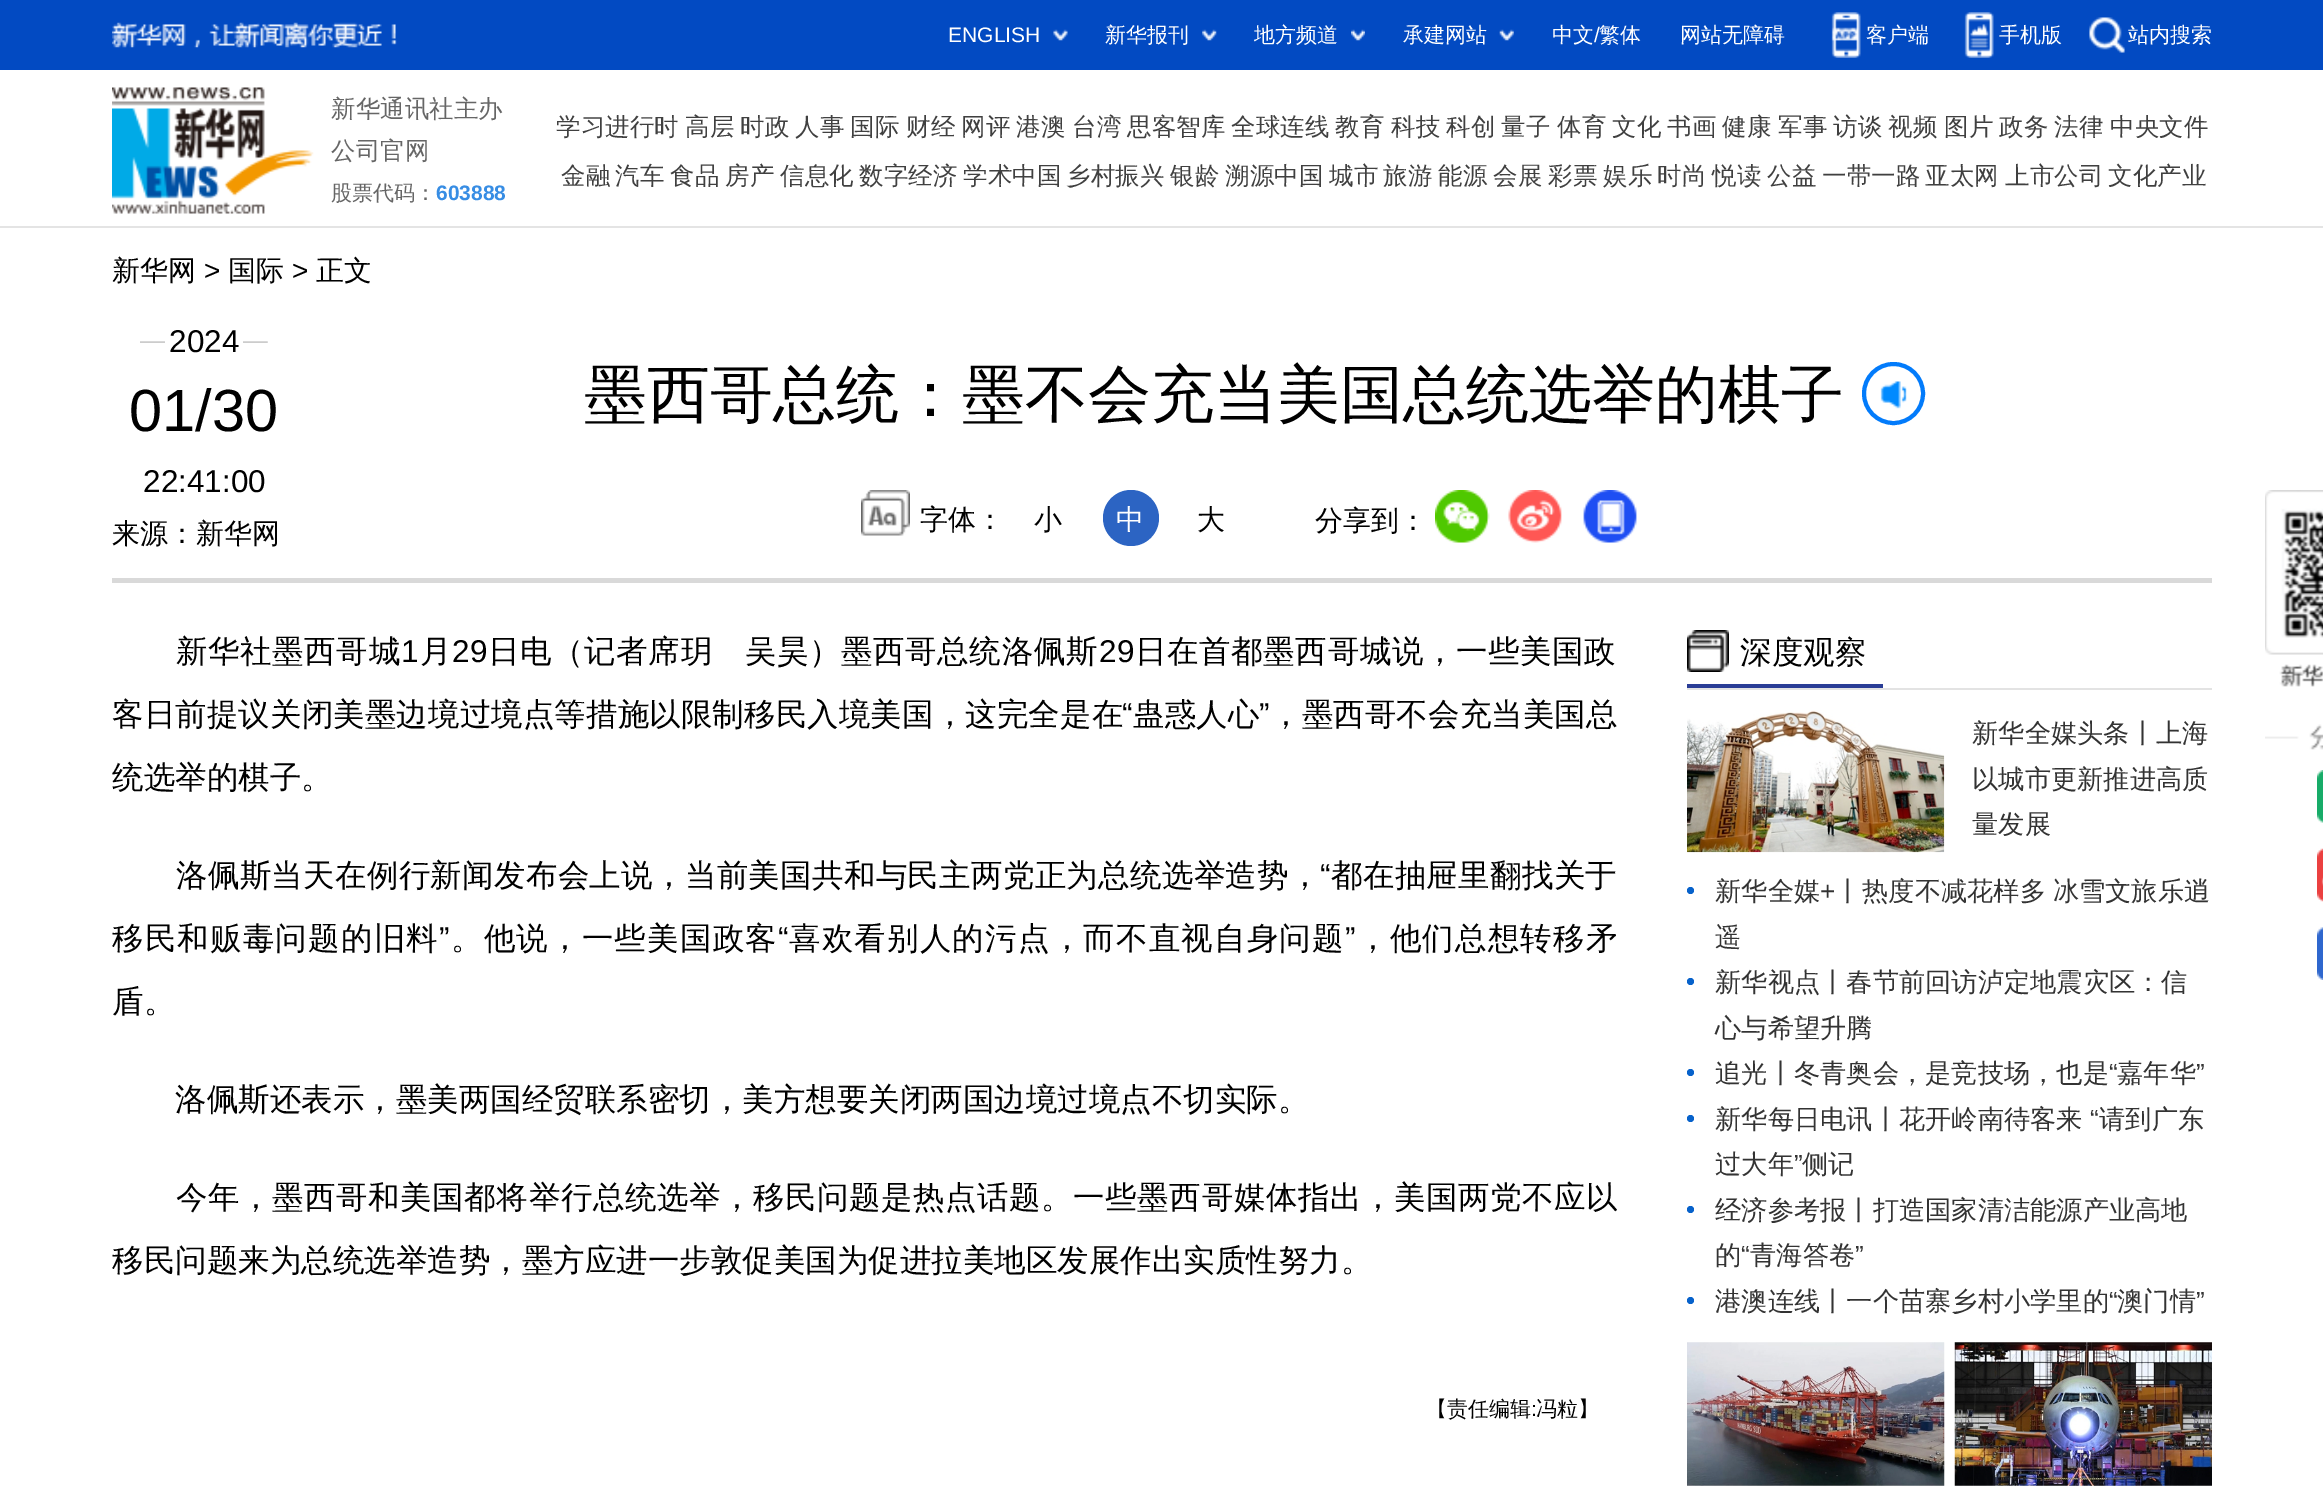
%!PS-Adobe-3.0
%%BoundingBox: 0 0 2323 1489
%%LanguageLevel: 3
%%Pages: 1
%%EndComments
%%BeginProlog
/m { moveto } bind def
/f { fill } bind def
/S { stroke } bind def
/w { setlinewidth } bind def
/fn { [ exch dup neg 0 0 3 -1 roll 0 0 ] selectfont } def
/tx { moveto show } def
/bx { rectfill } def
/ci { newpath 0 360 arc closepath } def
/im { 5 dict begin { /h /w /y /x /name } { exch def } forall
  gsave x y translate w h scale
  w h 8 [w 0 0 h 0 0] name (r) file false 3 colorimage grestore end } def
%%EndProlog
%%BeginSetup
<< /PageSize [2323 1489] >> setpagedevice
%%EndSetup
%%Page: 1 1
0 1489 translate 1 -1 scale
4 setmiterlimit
1 setgray
0 0 2323 1489 bx
0.008 0.29 0.761 setrgbcolor
0 0 2323 70 bx
(image0.raw) 112 22 285 26 im
/LiberationSans-Regular 21 fn
1 setgray
(ENGLISH) 948 42 tx
(image1.raw) 1053 29 15 12 im
/WenQuanYiZenHei-Medium 21 fn
(新华报刊) 1105 42 tx
(image2.raw) 1202 29 15 12 im
(地方频道) 1254 42 tx
(image3.raw) 1351 29 14 12 im
(承建网站) 1403 42 tx
(image4.raw) 1499 29 15 12 im
(中文) 1552 42 tx
/LiberationSans-Regular 21 fn
(/) 1594 42 tx
/WenQuanYiZenHei-Medium 21 fn
(繁体) 1599 42 tx
(网站无障碍) 1680 42 tx
(image5.raw) 1831 12 30 46 im
(客户端) 1866 42 tx
(image6.raw) 1964 12 30 46 im
(手机版) 1999 42 tx
(image7.raw) 2089 17 36 36 im
(站内搜索) 2128 42 tx
0.894 setgray
0 226 2323 2 bx
(image8.raw) 112 87 202 127 im
/WenQuanYiZenHei-Medium 24.5 fn
0.4 setgray
(新华通讯社主办) 331 117 tx
(公司官网) 331 159 tx
/WenQuanYiZenHei-Medium 21 fn
(股票代码：) 331 200 tx
/LiberationSans-Bold 21 fn
0.216 0.553 0.894 setrgbcolor
(603888) 436 200 tx
/WenQuanYiZenHei-Medium 24.5 fn
0.251 setgray
(学习进行时) 556 135 tx
(高层) 685 135 tx
(时政) 740 135 tx
(人事) 795 135 tx
(国际) 850 135 tx
(财经) 906 135 tx
(网评) 961 135 tx
(港澳) 1016 135 tx
(台湾) 1072 135 tx
(思客智库) 1127 135 tx
(全球连线) 1231 135 tx
(教育) 1335 135 tx
(科技) 1391 135 tx
(科创) 1446 135 tx
(量子) 1501 135 tx
(体育) 1557 135 tx
(文化) 1612 135 tx
(书画) 1667 135 tx
(健康) 1722 135 tx
(军事) 1778 135 tx
(访谈) 1833 135 tx
(视频) 1888 135 tx
(图片) 1944 135 tx
(政务) 1999 135 tx
(法律) 2054 135 tx
(中央文件) 2110 135 tx
(金融) 561 184 tx
(汽车) 615 184 tx
(食品) 670 184 tx
(房产) 725 184 tx
(信息化) 780 184 tx
(数字经济) 859 184 tx
(学术中国) 963 184 tx
(乡村振兴) 1066 184 tx
(银龄) 1170 184 tx
(溯源中国) 1225 184 tx
(城市) 1329 184 tx
(旅游) 1383 184 tx
(能源) 1438 184 tx
(会展) 1493 184 tx
(彩票) 1548 184 tx
(娱乐) 1603 184 tx
(时尚) 1657 184 tx
(悦读) 1712 184 tx
(公益) 1767 184 tx
(一带一路) 1822 184 tx
(亚太网) 1925 184 tx
(上市公司) 2005 184 tx
(文化产业) 2108 184 tx
0.851 setgray
112 578 2100 5 bx
/WenQuanYiZenHei-Medium 28 fn
0 setgray
(新华网) 112 280 tx
/LiberationSans-Regular 28 fn
(>) 204 280 tx
/WenQuanYiZenHei-Medium 28 fn
(国际) 228 280 tx
/LiberationSans-Regular 28 fn
(>) 292 280 tx
/WenQuanYiZenHei-Medium 28 fn
(正文) 316 280 tx
(image9.raw) 140 341 128 2 im
1 setgray
165 341 78 2 bx
/LiberationSans-Regular 31.5 fn
0 setgray
(2024) 169 352 tx
/LiberationSans-Regular 59.5 fn
(01/30) 129 431 tx
/LiberationSans-Regular 31.5 fn
(22:41:00) 143 492 tx
/WenQuanYiZenHei-Medium 63 fn
(墨西哥总统：墨不会充当美国总统选举的棋子) 584 416 tx
0.008 0.482 0.984 setrgbcolor
4 w
1893.5 393.5 29.5 ci S
(image10.raw) 1880 381 27 28 im
(image11.raw) 861 490 49 46 im
/WenQuanYiZenHei-Medium 28 fn
0 setgray
(字体：) 920 529 tx
(小) 1034 529 tx
0.173 0.392 0.765 setrgbcolor
1131 518 28 ci f
1 setgray
(中) 1116 529 tx
0 setgray
(大) 1197 529 tx
(分享到：) 1315 530 tx
(image12.raw) 1435 490 55 53 im
(image13.raw) 1508 490 54 53 im
(image14.raw) 1583 490 54 53 im
(来源：新华网) 112 543 tx
/WenQuanYiZenHei-Medium 31.5 fn
176 662 m 0.6 0 (新华社墨西哥城) ashow
/LiberationSans-Regular 31.5 fn
401 662 m 0.6 0 (1) ashow
/WenQuanYiZenHei-Medium 31.5 fn
420 662 m 0.6 0 (月) ashow
/LiberationSans-Regular 31.5 fn
452 662 m 0.6 0 (29) ashow
/WenQuanYiZenHei-Medium 31.5 fn
488 662 m 0.6 0 (日电（记者席玥　吴昊）墨西哥总统洛佩斯) ashow
/LiberationSans-Regular 31.5 fn
1099 662 m 0.6 0 (29) ashow
/WenQuanYiZenHei-Medium 31.5 fn
1135 662 m 0.6 0 (日在首都墨西哥城说，一些美国政) ashow
112 725 m 0.1 0 (客日前提议关闭美墨边境过境点等措施以限制移民入境美国，这完全是在) ashow
/LiberationSans-Regular 31.5 fn
1122 725 m 0.1 0 (“) ashow
/WenQuanYiZenHei-Medium 31.5 fn
1133 725 m 0.1 0 (蛊惑人心) ashow
/LiberationSans-Regular 31.5 fn
1259 725 m 0.1 0 (”) ashow
/WenQuanYiZenHei-Medium 31.5 fn
1270 725 m 0.1 0 (，墨西哥不会充当美国总) ashow
(统选举的棋子。) 112 788 tx
176 886 m 0.3 0 (洛佩斯当天在例行新闻发布会上说，当前美国共和与民主两党正为总统选举造势，) ashow
/LiberationSans-Regular 31.5 fn
1320 886 m 0.3 0 (“) ashow
/WenQuanYiZenHei-Medium 31.5 fn
1331 886 m 0.3 0 (都在抽屉里翻找关于) ashow
112 949 m 1.2 0 (移民和贩毒问题的旧料) ashow
/LiberationSans-Regular 31.5 fn
439 949 m 1.2 0 (”) ashow
/WenQuanYiZenHei-Medium 31.5 fn
451 949 m 1.2 0 (。他说，一些美国政客) ashow
/LiberationSans-Regular 31.5 fn
778 949 m 1.2 0 (“) ashow
/WenQuanYiZenHei-Medium 31.5 fn
789 949 m 1.2 0 (喜欢看别人的污点，而不直视自身问题) ashow
/LiberationSans-Regular 31.5 fn
1345 949 m 1.2 0 (”) ashow
/WenQuanYiZenHei-Medium 31.5 fn
1357 949 m 1.2 0 (，他们总想转移矛) ashow
(盾。) 112 1012 tx
(洛佩斯还表示，墨美两国经贸联系密切，美方想要关闭两国边境过境点不切实际。) 175 1110 tx
176 1208 m 0.55 0 (今年，墨西哥和美国都将举行总统选举，移民问题是热点话题。一些墨西哥媒体指出，美国两党不应以) ashow
(移民问题来为总统选举造势，墨方应进一步敦促美国为促进拉美地区发展作出实质性努力。) 112 1271 tx
/WenQuanYiZenHei-Medium 21 fn
(【责任编辑) 1426 1416 tx
/LiberationSans-Regular 21 fn
(:) 1531 1416 tx
/WenQuanYiZenHei-Medium 21 fn
(冯粒】) 1536 1416 tx
0.89 setgray
1687 688 525 2 bx
(image15.raw) 1687 630 42 42 im
0.165 0.239 0.588 setrgbcolor
1687 684 196 4 bx
/WenQuanYiZenHei-Medium 31.5 fn
0 setgray
(深度观察) 1740 663 tx
(image16.raw) 1687 710 258 143 im
/WenQuanYiZenHei-Medium 26.25 fn
0.2 setgray
(新华全媒头条丨上海) 1972 742 tx
(以城市更新推进高质) 1972 788 tx
(量发展) 1972 833 tx
0.027 0.384 0.796 setrgbcolor
1690.5 890.5 3.5 ci f
0.2 setgray
(新华全媒) 1715 900 tx
/LiberationSans-Regular 26.25 fn
(+) 1820 900 tx
/WenQuanYiZenHei-Medium 26.25 fn
(丨) 1835 900 tx
1862 900 m -1 0 32 (热度不减花样多 冰雪文旅乐逍) widthshow
(遥) 1715 946 tx
0.027 0.384 0.796 setrgbcolor
1690.5 981.5 3.5 ci f
0.2 setgray
(新华视点丨春节前回访泸定地震灾区：信) 1715 991 tx
(心与希望升腾) 1715 1037 tx
(追光丨冬青奥会，是竞技场，也是) 1715 1082 tx
/LiberationSans-Regular 26.25 fn
(“) 2109 1082 tx
/WenQuanYiZenHei-Medium 26.25 fn
(嘉年华) 2117 1082 tx
/LiberationSans-Regular 26.25 fn
(”) 2196 1082 tx
0.027 0.384 0.796 setrgbcolor
1690.5 1072.5 3.5 ci f
/WenQuanYiZenHei-Medium 26.25 fn
0.2 setgray
(新华每日电讯丨花开岭南待客来) 1715 1128 tx
/LiberationSans-Regular 26.25 fn
(“) 2090 1128 tx
/WenQuanYiZenHei-Medium 26.25 fn
(请到广东) 2099 1128 tx
0.027 0.384 0.796 setrgbcolor
1690.5 1118.5 3.5 ci f
0.2 setgray
(过大年) 1715 1173 tx
/LiberationSans-Regular 26.25 fn
(”) 1794 1173 tx
/WenQuanYiZenHei-Medium 26.25 fn
(侧记) 1802 1173 tx
0.027 0.384 0.796 setrgbcolor
1690.5 1209.5 3.5 ci f
0.2 setgray
(经济参考报丨打造国家清洁能源产业高地) 1715 1219 tx
(的) 1715 1264 tx
/LiberationSans-Regular 26.25 fn
(“) 1741 1264 tx
/WenQuanYiZenHei-Medium 26.25 fn
(青海答卷) 1750 1264 tx
/LiberationSans-Regular 26.25 fn
(”) 1855 1264 tx
/WenQuanYiZenHei-Medium 26.25 fn
(港澳连线丨一个苗寨乡村小学里的) 1715 1310 tx
/LiberationSans-Regular 26.25 fn
(“) 2109 1310 tx
/WenQuanYiZenHei-Medium 26.25 fn
(澳门情) 2117 1310 tx
/LiberationSans-Regular 26.25 fn
(”) 2196 1310 tx
0.027 0.384 0.796 setrgbcolor
1690.5 1300.5 3.5 ci f
(image17.raw) 1687 1342 258 144 im
(image18.raw) 1954 1342 258 144 im
(image19.raw) 2265 490 58 197 im
(image20.raw) 2265 724 58 26 im
(image21.raw) 2317 770 6 53 im
(image22.raw) 2317 848 6 54 im
(image23.raw) 2317 927 6 53 im
showpage
%%EOF
